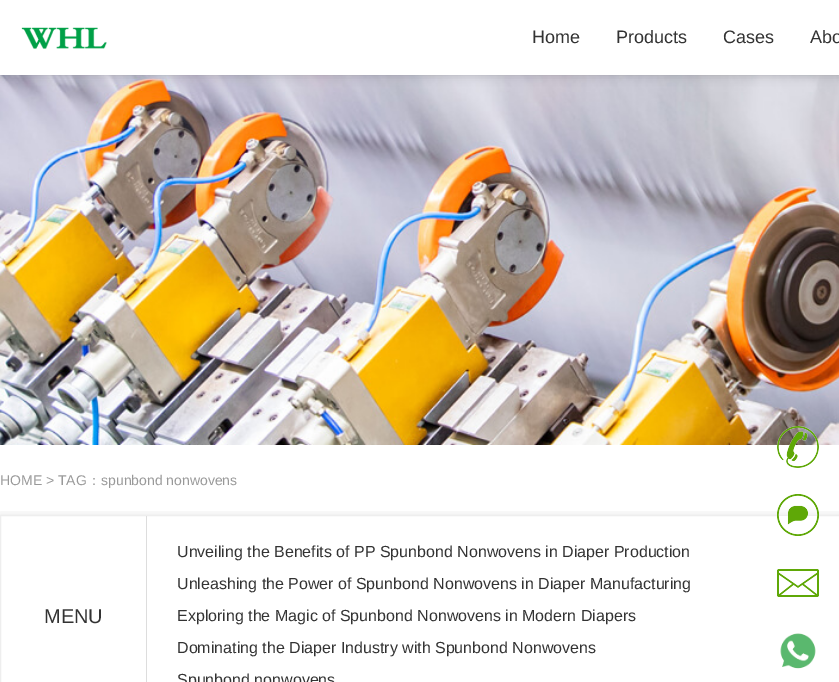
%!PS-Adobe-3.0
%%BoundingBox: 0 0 839 682
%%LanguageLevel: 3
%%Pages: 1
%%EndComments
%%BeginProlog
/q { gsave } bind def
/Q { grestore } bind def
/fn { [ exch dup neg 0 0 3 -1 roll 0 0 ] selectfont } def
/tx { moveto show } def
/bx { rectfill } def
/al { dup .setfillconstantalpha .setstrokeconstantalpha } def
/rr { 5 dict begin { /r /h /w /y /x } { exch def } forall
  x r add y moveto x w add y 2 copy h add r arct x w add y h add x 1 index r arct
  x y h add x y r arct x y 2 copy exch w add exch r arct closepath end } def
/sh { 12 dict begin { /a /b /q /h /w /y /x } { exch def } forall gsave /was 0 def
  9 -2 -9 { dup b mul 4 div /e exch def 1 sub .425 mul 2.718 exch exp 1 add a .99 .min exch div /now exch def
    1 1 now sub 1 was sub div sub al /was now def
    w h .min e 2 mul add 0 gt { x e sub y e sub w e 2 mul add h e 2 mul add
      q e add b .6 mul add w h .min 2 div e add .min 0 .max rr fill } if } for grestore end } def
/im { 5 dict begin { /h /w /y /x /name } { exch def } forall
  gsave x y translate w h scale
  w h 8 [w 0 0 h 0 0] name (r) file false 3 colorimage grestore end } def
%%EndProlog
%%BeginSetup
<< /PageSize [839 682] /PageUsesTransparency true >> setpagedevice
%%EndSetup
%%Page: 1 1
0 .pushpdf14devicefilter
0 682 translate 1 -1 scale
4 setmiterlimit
1 setgray
0 0 839 682 bx
(image1.raw) 0 75 839 370 im
0 setgray
0 0 839 75 0 5 0.2 sh
1 setgray
0 0 839 75 bx
(image0.raw) 21 27 86 22 im
/LiberationSans-Regular 18 fn
0.2 setgray
(Home) 532 43 tx
(Products) 616 43 tx
(Cases) 723 43 tx
(Abo) 810 43 tx
/LiberationSans-Regular 14 fn
0.6 setgray
(HOME > TAG) 0 485 tx
/WenQuanYiZenHei-Medium 14 fn
(：) 87 485 tx
/LiberationSans-Regular 14 fn
(spunbond nonwovens) 101 485 tx
q
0 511 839 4 rectclip
0 setgray
0 515 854 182 0 5 0.1 sh
Q
0.933 setgray
0.5 515.5 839 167 rectstroke
0.867 setgray
146 516 1 166 bx
/LiberationSans-Regular 20 fn
0.2 setgray
(MENU) 44 623 tx
/LiberationSans-Regular 16 fn
(Unveiling the Benefits of PP Spunbond Nonwovens in Diaper Production) 177 557 tx
(Unleashing the Power of Spunbond Nonwovens in Diaper Manufacturing) 177 589 tx
(Exploring the Magic of Spunbond Nonwovens in Modern Diapers) 177 621 tx
(Dominating the Diaper Industry with Spunbond Nonwovens) 177 653 tx
(Spunbond nonwovens) 177 685 tx
(image2.raw) 777 426 42 42 im
(image3.raw) 777 494 42 42 im
(image4.raw) 777 569 42 28 im
(image5.raw) 780 633 36 36 im
.poppdf14devicefilter showpage
%%EOF
